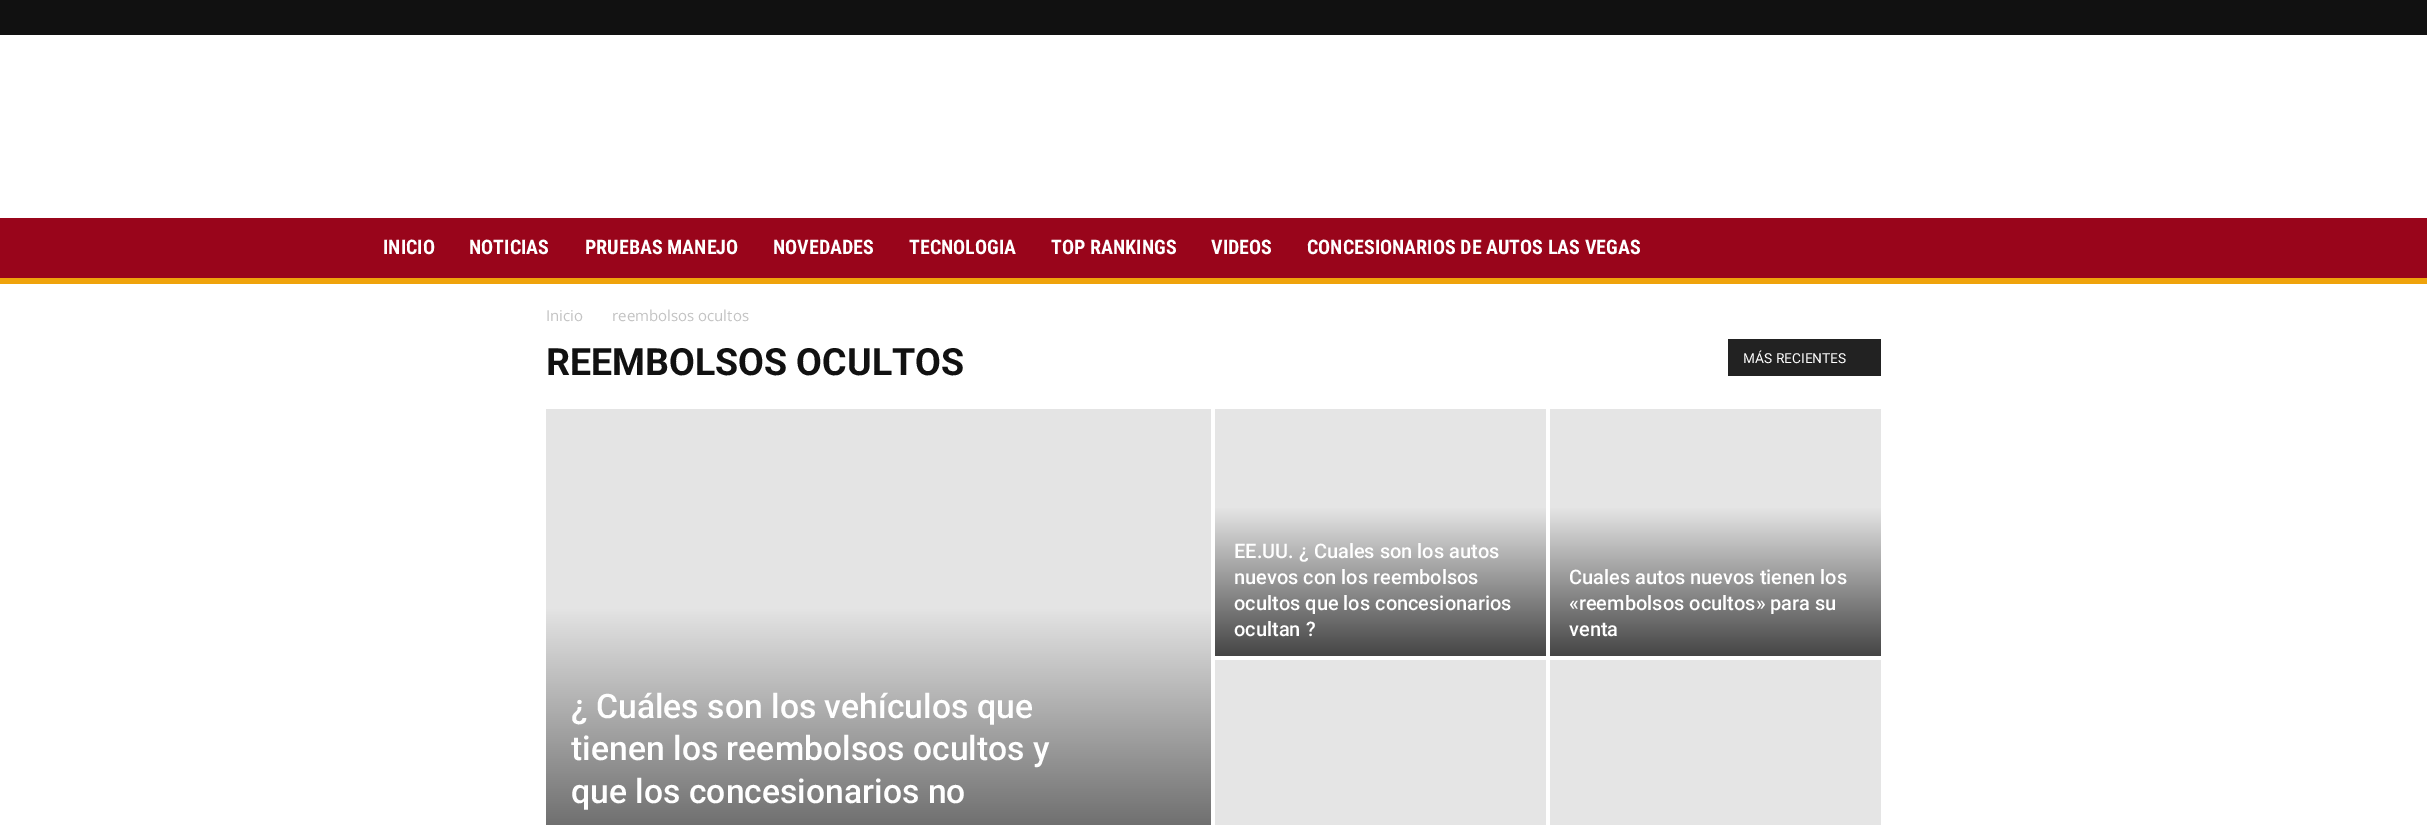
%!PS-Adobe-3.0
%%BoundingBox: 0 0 2427 825
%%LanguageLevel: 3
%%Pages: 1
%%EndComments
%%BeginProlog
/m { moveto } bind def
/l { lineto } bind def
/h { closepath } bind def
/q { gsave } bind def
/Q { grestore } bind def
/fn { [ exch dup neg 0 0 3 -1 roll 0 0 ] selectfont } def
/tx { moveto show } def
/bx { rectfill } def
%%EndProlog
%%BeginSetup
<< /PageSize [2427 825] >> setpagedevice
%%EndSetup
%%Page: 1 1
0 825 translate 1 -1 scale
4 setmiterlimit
1 setgray
0 0 2427 825 bx
0.067 setgray
0 0 2427 35 bx
0.6 0.02 0.106 setrgbcolor
0 218 2427 60 bx
0.937 0.639 0.043 setrgbcolor
0 278 2427 6 bx
/RobotoCondensed-Bold 20 fn
1 setgray
(INICIO) 383 254 tx
(NOTICIAS) 469 254 tx
(PRUEBAS MANEJO) 585 254 tx
(NOVEDADES) 773 254 tx
(TECNOLOGIA) 909 254 tx
(TOP RANKINGS) 1051 254 tx
(VIDEOS) 1211 254 tx
(CONCESIONARIOS DE AUTOS LAS VEGAS) 1307 254 tx
/OpenSans-Regular 15 fn
0.765 setgray
(Inicio) 546 321 tx
(reembolsos ocultos) 612 321 tx
/Roboto-Bold 37.5 fn
0.067 setgray
(REEMBOLSOS OCULTOS) 546 375 tx
0.133 setgray
1728 339 153 37 bx
/Roboto-Regular 13.75 fn
1 setgray
(MÁS RECIENTES) 1743 363 tx
q 1215 409 m 1546 409 l 1546 656 l 1215 656 l h clip newpath
<< /ShadingType 2 /ColorSpace /DeviceRGB /Coords [1381 409 1381 656] /Extend [true true] /Function << /FunctionType 3 /Domain [0 1] /Functions [<< /FunctionType 2 /Domain [0 1] /C0 [0.898 0.898 0.898] /C1 [0.898 0.898 0.898] /N 1 >> << /FunctionType 2 /Domain [0 1] /C0 [0.898 0.898 0.898] /C1 [0.271 0.271 0.271] /N 1 >>] /Bounds [0.4] /Encode [0 1 0 1] >> >> shfill Q
/Roboto-Medium 20 fn
(EE.UU. ¿ Cuales son los autos) 1234 558 tx
(nuevos con los reembolsos) 1234 584 tx
(ocultos que los concesionarios) 1234 610 tx
(ocultan ?) 1234 636 tx
q 1550 409 m 1881 409 l 1881 656 l 1550 656 l h clip newpath
<< /ShadingType 2 /ColorSpace /DeviceRGB /Coords [1716 409 1716 656] /Extend [true true] /Function << /FunctionType 3 /Domain [0 1] /Functions [<< /FunctionType 2 /Domain [0 1] /C0 [0.898 0.898 0.898] /C1 [0.898 0.898 0.898] /N 1 >> << /FunctionType 2 /Domain [0 1] /C0 [0.898 0.898 0.898] /C1 [0.271 0.271 0.271] /N 1 >>] /Bounds [0.4] /Encode [0 1 0 1] >> >> shfill Q
(Cuales autos nuevos tienen los) 1569 584 tx
(«reembolsos ocultos» para su) 1569 610 tx
(venta) 1569 636 tx
0.898 setgray
1215 660 331 165 bx
1550 660 331 165 bx
q 546 409 m 1211 409 l 1211 825 l 546 825 l h clip newpath
<< /ShadingType 2 /ColorSpace /DeviceRGB /Coords [879 409 879 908] /Extend [true true] /Function << /FunctionType 3 /Domain [0 1] /Functions [<< /FunctionType 2 /Domain [0 1] /C0 [0.894 0.894 0.894] /C1 [0.894 0.894 0.894] /N 1 >> << /FunctionType 2 /Domain [0 1] /C0 [0.894 0.894 0.894] /C1 [0.267 0.267 0.267] /N 1 >>] /Bounds [0.4] /Encode [0 1 0 1] >> >> shfill Q
/Roboto-Medium 33.75 fn
1 setgray
(¿ Cuáles son los vehículos que) 571 718 tx
(tienen los reembolsos ocultos y) 571 760 tx
(que los concesionarios no) 571 803 tx
showpage
%%EOF
